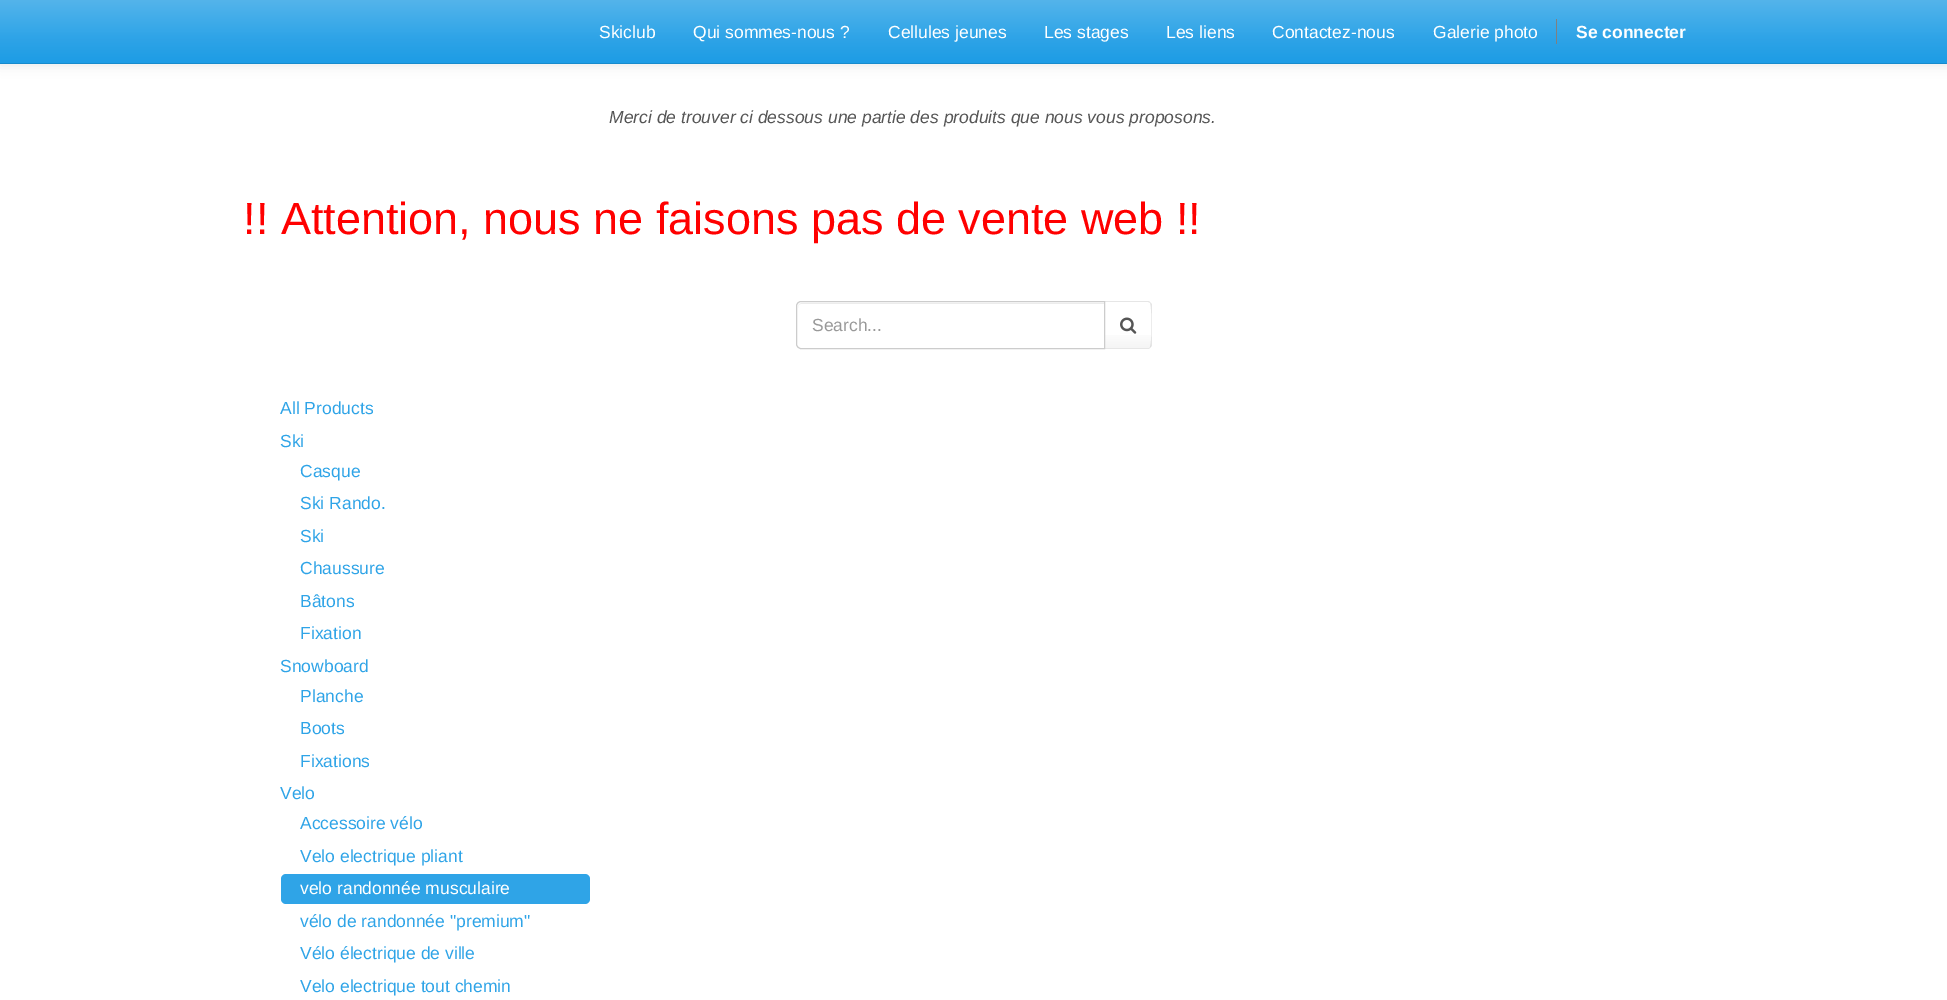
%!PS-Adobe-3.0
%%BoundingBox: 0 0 1947 1000
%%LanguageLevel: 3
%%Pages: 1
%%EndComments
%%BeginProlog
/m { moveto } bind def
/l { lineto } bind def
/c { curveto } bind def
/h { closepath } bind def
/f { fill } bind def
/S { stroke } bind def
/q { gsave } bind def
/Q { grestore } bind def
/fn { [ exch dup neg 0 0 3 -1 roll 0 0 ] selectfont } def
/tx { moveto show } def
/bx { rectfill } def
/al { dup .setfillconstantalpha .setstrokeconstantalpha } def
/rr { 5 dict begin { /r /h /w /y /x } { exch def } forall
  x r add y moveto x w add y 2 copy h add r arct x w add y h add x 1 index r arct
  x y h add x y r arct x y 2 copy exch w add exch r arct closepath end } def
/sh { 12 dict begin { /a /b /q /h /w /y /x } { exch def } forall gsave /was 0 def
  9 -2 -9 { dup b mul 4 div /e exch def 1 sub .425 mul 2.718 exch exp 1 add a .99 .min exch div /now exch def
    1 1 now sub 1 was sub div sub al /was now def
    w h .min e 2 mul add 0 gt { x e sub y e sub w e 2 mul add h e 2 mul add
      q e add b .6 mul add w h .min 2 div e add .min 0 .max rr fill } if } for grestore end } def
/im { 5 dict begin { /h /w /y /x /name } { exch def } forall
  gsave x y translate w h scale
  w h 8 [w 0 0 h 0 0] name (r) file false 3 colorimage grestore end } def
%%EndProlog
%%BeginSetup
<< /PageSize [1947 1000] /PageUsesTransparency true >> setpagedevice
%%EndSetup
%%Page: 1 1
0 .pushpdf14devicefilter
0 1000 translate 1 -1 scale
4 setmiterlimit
1 setgray
0 0 1947 1000 bx
0 setgray
0 1 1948 64 0 6 0.1 sh
q 0 0 m 1947 0 l 1947 63 l 0 63 l h clip newpath
<< /ShadingType 2 /ColorSpace /DeviceRGB /Coords [974 0 974 63] /Extend [true true] /Function << /FunctionType 3 /Domain [0 1] /Functions [<< /FunctionType 2 /Domain [0 1] /C0 [0.329 0.706 0.922] /C1 [0.184 0.643 0.906] /N 1 >> << /FunctionType 2 /Domain [0 1] /C0 [0.184 0.643 0.906] /C1 [0.114 0.612 0.898] /N 1 >>] /Bounds [0.6] /Encode [0 1 0 1] >> >> shfill Q
0.09 0.541 0.8 setrgbcolor
0 63 1947 1 bx
/LiberationSans-Regular 17.5 fn
1 setgray
(Skiclub) 599 38 tx
(Qui sommes-nous ?) 693 38 tx
(Cellules jeunes) 888 38 tx
(Les stages) 1044 38 tx
(Les liens) 1166 38 tx
(Contactez-nous) 1272 38 tx
(Galerie photo) 1433 38 tx
0.502 setgray
1556 19 1 25 bx
/LiberationSans-Bold 17.5 fn
1 setgray
(Se connecter) 1576 38 tx
/LiberationSans-Italic 17.5 fn
0.333 setgray
(Merci de trouver ci dessous une partie des produits que nous vous proposons.) 609 123 tx
/LiberationSans-Regular 45 fn
1 0 0 setrgbcolor
(!! Attention, nous ne faisons pas de vente web !!) 243 234 tx
0.902 setgray
1105 302 m 1104 301 l 1149 301 l 1151 303 l 1150 303 l 1150 303 1149 302 1148 302 c h f
q 1105 335 m 1151 335 l 1151 348 l 1105 348 l h clip newpath
<< /ShadingType 2 /ColorSpace /DeviceRGB /Coords [1128 303 1128 348] /Extend [true true] /Function << /FunctionType 3 /Domain [0 1] /Functions [<< /FunctionType 2 /Domain [0 1] /C0 [1 1 1] /C1 [1 1 1] /N 1 >> << /FunctionType 2 /Domain [0 1] /C0 [1 1 1] /C1 [0.961 0.961 0.961] /N 1 >>] /Bounds [0.6] /Encode [0 1 0 1] >> >> shfill Q
1104 349 m 1105 348 l 1149 348 l 1150 347 l 1151 347 l 1149 349 l h f
1 setgray
801 301 m 1105 301 l 1105 349 l 801 349 l 798 349 796 347 796 344 c 796 306 l 796 303 798 301 801 301 c h f
0.925 setgray
801 304 m 1104 304 l 1104 303 l 802 303 l 800 303 798 305 798 307 c 798 308 l 798 305 799 304 801 304 c h f
0.8 setgray
801 301.5 m 1104.5 301.5 l 1104.5 348.5 l 801 348.5 l 798.5 348.5 796.5 346.5 796.5 344 c 796.5 306 l 796.5 303.5 798.5 301.5 801 301.5 c h S
/LiberationSans-Regular 17.5 fn
0.6 setgray
(Search...) 812 331 tx
0.1 al
0 setgray
1151 303 m 1152 304 1152 305 1152 306 c 1152 344 l 1152 345 1152 346 1151 347 c 1150 347 l 1152 344 1152 306 1150 303 c h f
1 al
(image0.raw) 1120 317 17 17 im
0.184 0.643 0.906 setrgbcolor
(All Products) 280 414 tx
(Ski) 280 447 tx
(Casque) 300 477 tx
(Ski Rando.) 300 509 tx
(Ski) 300 542 tx
(Chaussure) 300 574 tx
(Bâtons) 300 607 tx
(Fixation) 300 639 tx
(Snowboard) 280 672 tx
(Planche) 300 702 tx
(Boots) 300 734 tx
(Fixations) 300 767 tx
(Velo) 280 799 tx
(Accessoire vélo) 300 829 tx
(Velo electrique pliant) 300 862 tx
281 874 309 30 5 rr f
1 setgray
(velo randonnée musculaire) 300 894 tx
0.184 0.643 0.906 setrgbcolor
(vélo de randonnée "premium") 300 927 tx
(Vélo électrique de ville) 300 959 tx
(Velo electrique tout chemin) 300 992 tx
.poppdf14devicefilter showpage
%%EOF
